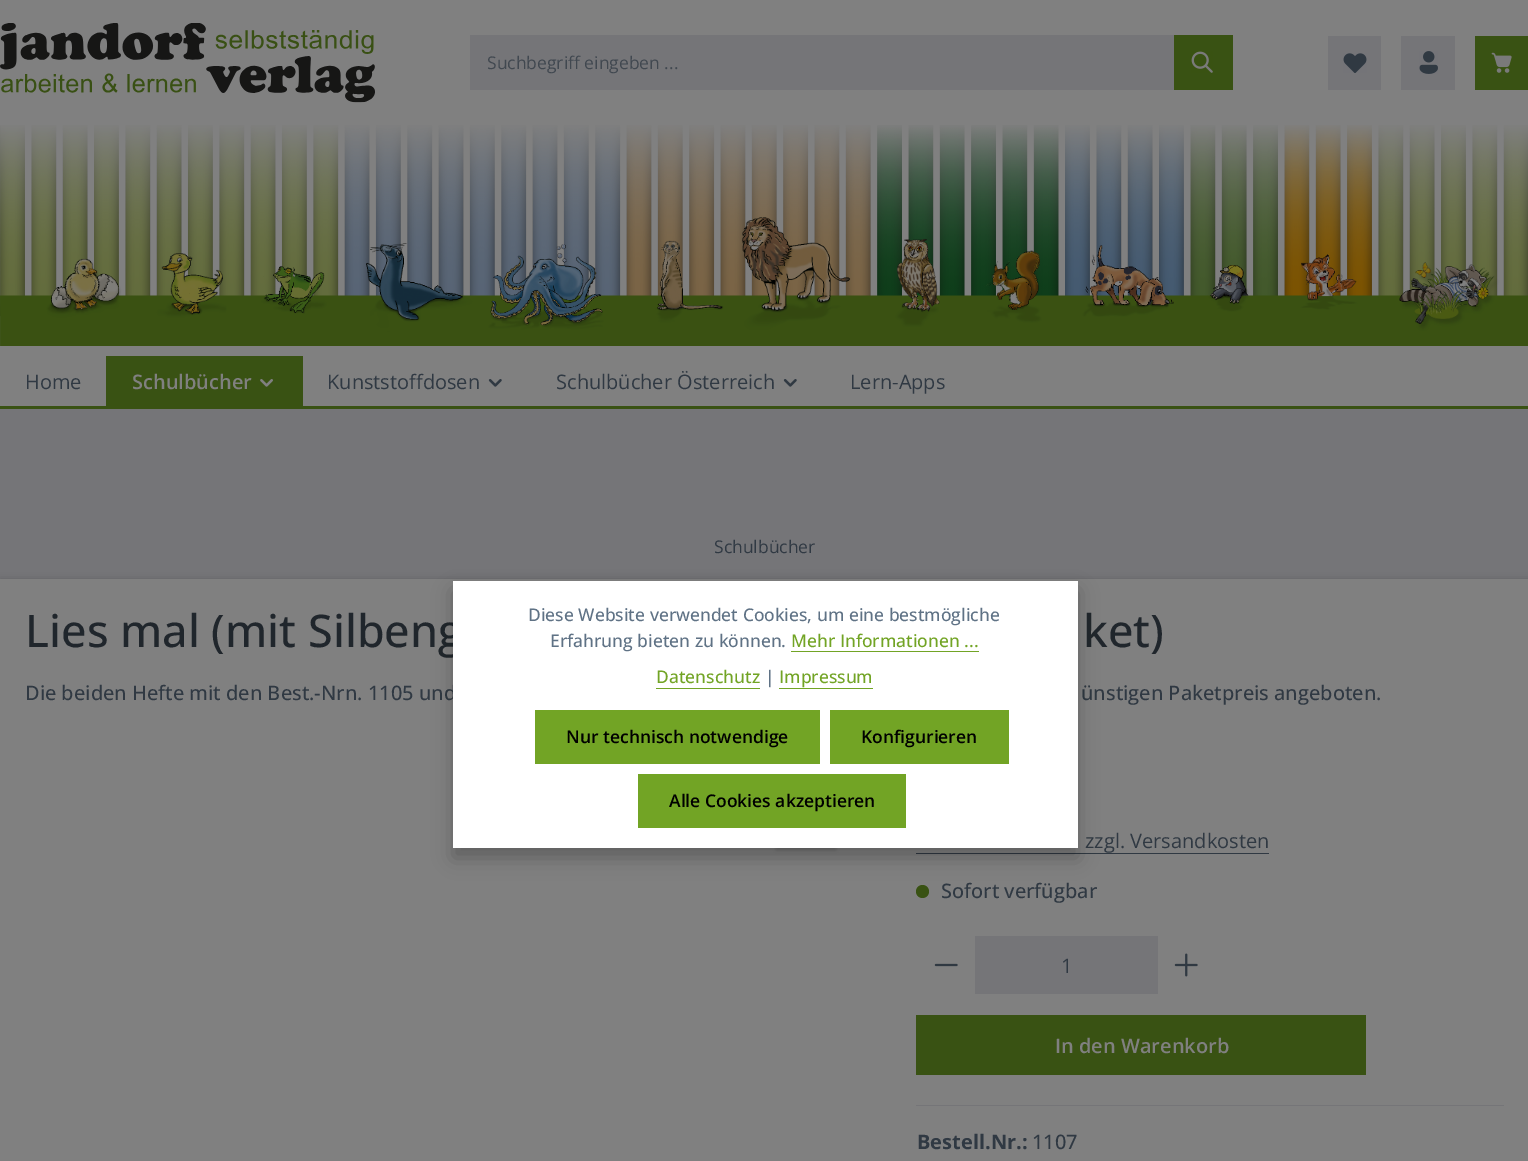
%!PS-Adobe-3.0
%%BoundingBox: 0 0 1528 1161
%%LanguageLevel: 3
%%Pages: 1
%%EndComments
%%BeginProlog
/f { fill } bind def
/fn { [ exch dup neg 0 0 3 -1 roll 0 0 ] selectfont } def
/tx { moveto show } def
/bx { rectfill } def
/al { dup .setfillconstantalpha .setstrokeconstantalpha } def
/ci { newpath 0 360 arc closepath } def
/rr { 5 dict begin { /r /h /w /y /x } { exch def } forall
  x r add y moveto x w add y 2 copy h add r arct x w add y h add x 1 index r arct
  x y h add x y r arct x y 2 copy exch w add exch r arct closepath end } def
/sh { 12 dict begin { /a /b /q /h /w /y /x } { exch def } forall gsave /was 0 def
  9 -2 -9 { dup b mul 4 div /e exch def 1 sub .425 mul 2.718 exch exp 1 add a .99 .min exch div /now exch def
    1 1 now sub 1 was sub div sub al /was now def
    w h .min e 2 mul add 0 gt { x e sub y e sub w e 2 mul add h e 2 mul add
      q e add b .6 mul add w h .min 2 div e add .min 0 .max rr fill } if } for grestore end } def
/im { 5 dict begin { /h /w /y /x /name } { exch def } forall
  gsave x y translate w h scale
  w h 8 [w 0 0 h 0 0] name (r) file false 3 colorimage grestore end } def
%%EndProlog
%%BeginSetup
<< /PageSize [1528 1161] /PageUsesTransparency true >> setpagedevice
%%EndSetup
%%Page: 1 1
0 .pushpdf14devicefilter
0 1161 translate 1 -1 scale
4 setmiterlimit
0.459 0.459 0.471 setrgbcolor
0 0 1528 1161 bx
0.224 0.322 0.075 setrgbcolor
0 406 1528 3 bx
0.502 setgray
0 0 1528 406 bx
(image0.raw) 0 23 375 80 im
0.459 0.459 0.471 setrgbcolor
471 36 703 53 bx
470 35 705 1 bx
470 89 705 1 bx
470 35 1 55 bx
/OpenSans-Regular 17.5 fn
0.255 0.282 0.314 setrgbcolor
(Suchbegriff eingeben ...) 487 69 tx
0.224 0.322 0.075 setrgbcolor
1174 35 59 55 bx
(image1.raw) 1191 51 22 22 im
0.459 0.459 0.471 setrgbcolor
1328 36 53 54 bx
(image2.raw) 1343 53 24 20 im
1401 36 54 54 bx
(image3.raw) 1419 51 19 23 im
0.224 0.322 0.075 setrgbcolor
1475 36 53 54 bx
(image4.raw) 1491 52 21 21 im
(image5.raw) 0 125 1528 221 im
/OpenSans-Regular 20 fn
0.188 0.224 0.263 setrgbcolor
(Home) 25 389 tx
0.224 0.322 0.075 setrgbcolor
106 356 197 50 bx
/OpenSans-SemiBold 20 fn
0.502 setgray
(Schulbücher) 132 389 tx
(image6.raw) 260 379 13 8 im
/OpenSans-Regular 20 fn
0.188 0.224 0.263 setrgbcolor
(Kunststoffdosen) 327 389 tx
(image7.raw) 488 379 14 8 im
(Schulbücher Österreich) 556 389 tx
(image7.raw) 783 379 14 8 im
(Lern-Apps) 850 389 tx
/OpenSans-Regular 17.5 fn
(Schulbücher) 714 553 tx
0 setgray
0 579 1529 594 0 4 0.16 sh
0.502 setgray
0 579 1528 582 bx
/OpenSans-Medium 45 fn
0.125 0.149 0.173 setrgbcolor
(Lies mal \(mit Silbeng) 25 647 tx
(ket\)) 1083 647 tx
/OpenSans-Medium 20 fn
0.188 0.224 0.263 setrgbcolor
(Die beiden Hefte mit den Best.-Nrn. 1105 und) 25 700 tx
(ünstigen Paketpreis angeboten.) 1081 700 tx
0 setgray
776 790 60 60 0 2.5 0.15 sh
/OpenSans-Regular 20 fn
0.188 0.224 0.263 setrgbcolor
(zzgl. Versandkosten) 1085 848 tx
916 853 353 1 bx
0.224 0.322 0.075 setrgbcolor
922.5 891.5 6.5 ci f
/OpenSans-Medium 20 fn
0.188 0.224 0.263 setrgbcolor
(Sofort verfügbar) 941 898 tx
(image8.raw) 934 963 24 4 im
0.459 0.459 0.471 setrgbcolor
975 936 183 58 bx
/OpenSans-Regular 20 fn
0.188 0.224 0.263 setrgbcolor
(1) 1061 973 tx
(image9.raw) 1174 953 24 24 im
0.224 0.322 0.075 setrgbcolor
916 1015 450 60 bx
/OpenSans-SemiBold 20 fn
0.502 setgray
(In den Warenkorb) 1055 1053 tx
0.459 0.459 0.471 setrgbcolor
916 1105 588 1 bx
/OpenSans-Bold 20 fn
0.188 0.224 0.263 setrgbcolor
(Bestell.Nr.:) 917 1149 tx
/OpenSans-Medium 20 fn
(1107) 1032 1149 tx
0 setgray
453 591 625 267 0 10 0.25 sh
1 setgray
453 581 625 267 bx
/OpenSans-Medium 17.5 fn
0.373 0.447 0.522 setrgbcolor
(Diese Website verwendet Cookies, um eine bestmögliche) 528 621 tx
(Erfahrung bieten zu können.) 550 647 tx
0.447 0.643 0.145 setrgbcolor
(Mehr Informationen ...) 791 647 tx
791 651 188 1 bx
(Datenschutz) 656 683 tx
656 688 104 1 bx
0.373 0.447 0.522 setrgbcolor
(|) 765 683 tx
0.447 0.643 0.145 setrgbcolor
(Impressum) 779 683 tx
779 688 94 1 bx
535 710 285 54 bx
/OpenSans-SemiBold 17.5 fn
0 setgray
(Nur technisch notwendige) 566 743 tx
0.447 0.643 0.145 setrgbcolor
830 710 179 54 bx
0 setgray
(Konfigurieren) 861 743 tx
0.447 0.643 0.145 setrgbcolor
638 774 268 54 bx
0 setgray
(Alle Cookies akzeptieren) 669 807 tx
.poppdf14devicefilter showpage
%%EOF
